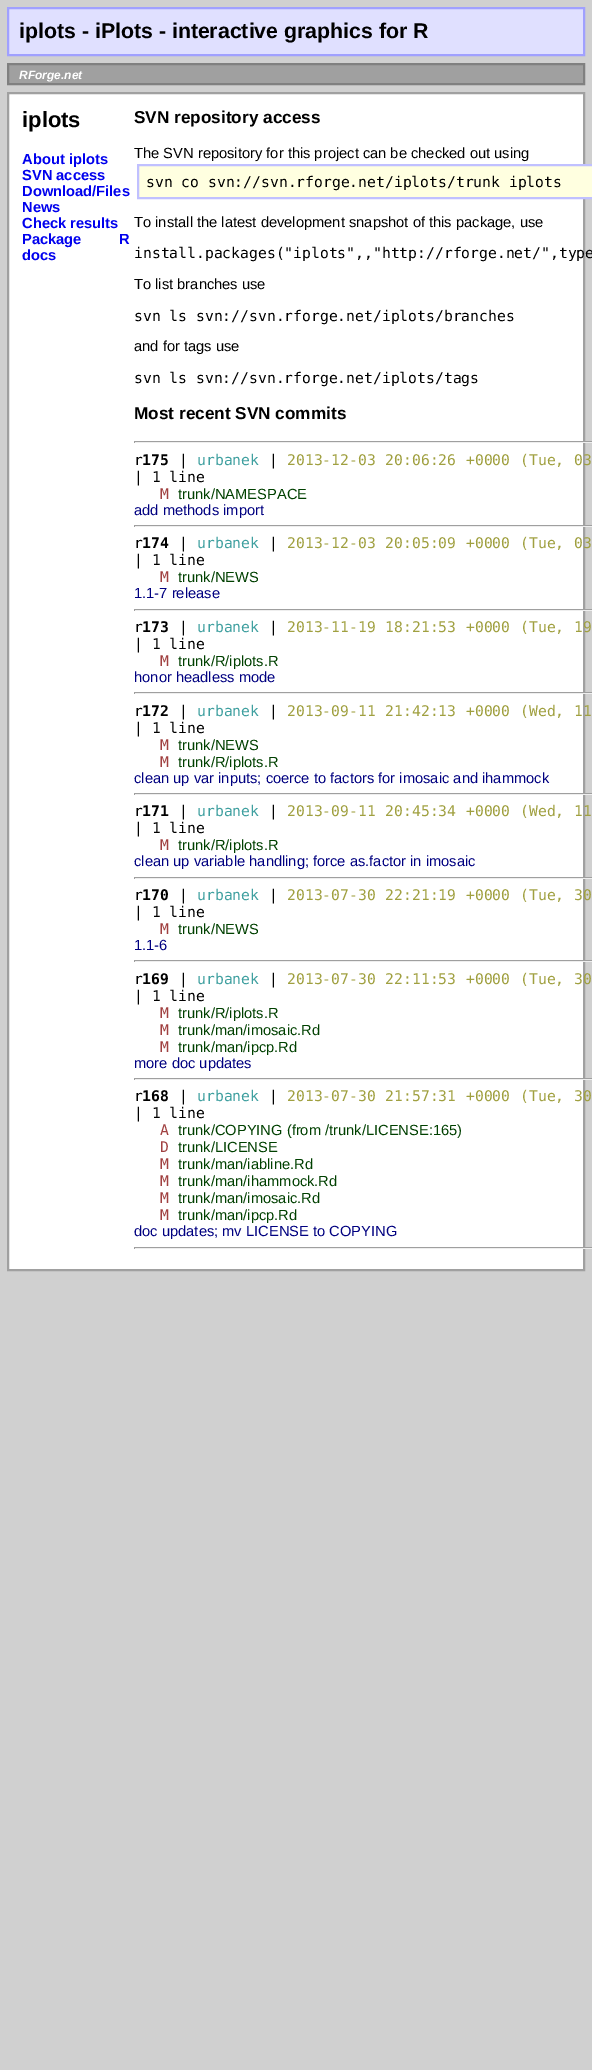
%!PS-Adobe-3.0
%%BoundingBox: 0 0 592 2070
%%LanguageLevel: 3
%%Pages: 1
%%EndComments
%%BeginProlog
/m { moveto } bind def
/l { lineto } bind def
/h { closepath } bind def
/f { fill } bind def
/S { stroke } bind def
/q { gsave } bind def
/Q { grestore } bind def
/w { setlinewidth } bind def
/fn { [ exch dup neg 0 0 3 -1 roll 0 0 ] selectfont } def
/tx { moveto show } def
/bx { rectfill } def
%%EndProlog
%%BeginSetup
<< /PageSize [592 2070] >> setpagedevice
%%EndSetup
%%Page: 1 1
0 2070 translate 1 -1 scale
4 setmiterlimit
0.816 setgray
0 0 592 2070 bx
0.878 0.878 1 setrgbcolor
8 8 m 584 8 l 584 55 l 8 55 l h q f Q
0.627 0.627 1 setrgbcolor
2 w
S
/LiberationSans-Bold 21.3 fn
0 setgray
(iplots - iPlots - interactive graphics for R) 19 38 tx
0.627 setgray
8 64 m 584 64 l 584 84 l 8 84 l h q f Q
0.502 setgray
S
/LiberationSans-BoldItalic 12 fn
1 setgray
(RForge.net) 19 79 tx
8 93 m 584 93 l 584 1270 l 8 1270 l h q f Q
0.627 setgray
S
/LiberationSans-Bold 22 fn
0 setgray
(iplots) 22 127 tx
/LiberationSans-Bold 14.7 fn
0 0 0.933 setrgbcolor
(About iplots) 22 164 tx
(SVN access) 22 180 tx
(Download/Files) 22 196 tx
(News) 22 212 tx
(Check results) 22 228 tx
22 244 m 33 0 32 (Package R) widthshow
(docs) 22 260 tx
/LiberationSans-Bold 17.2 fn
0 setgray
(SVN repository access) 134 123 tx
/LiberationSans-Regular 14.7 fn
(The SVN repository for this project can be checked out using) 134 158 tx
1 1 0.878 setrgbcolor
138 165 m 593 165 l 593 198 l 138 198 l h q f Q
0.753 0.753 1 setrgbcolor
S
/DejaVuSansMono-Regular 14.7 fn
0 setgray
(svn co svn://svn.rforge.net/iplots/trunk iplots) 146 187 tx
/LiberationSans-Regular 14.7 fn
(To install the latest development snapshot of this package, use) 134 227 tx
/DejaVuSansMono-Regular 14.7 fn
(install.packages\("iplots",,"http://rforge.net/",type) 134 258 tx
/LiberationSans-Regular 14.7 fn
(To list branches use) 134 289 tx
/DejaVuSansMono-Regular 14.7 fn
(svn ls svn://svn.rforge.net/iplots/branches) 134 321 tx
/LiberationSans-Regular 14.7 fn
(and for tags use) 134 351 tx
/DejaVuSansMono-Regular 14.7 fn
(svn ls svn://svn.rforge.net/iplots/tags) 134 383 tx
/LiberationSans-Bold 17.2 fn
(Most recent SVN commits) 134 419 tx
0.624 setgray
134 441 458 1 bx
0.933 setgray
134 442 458 1 bx
0.624 setgray
134 441 1 2 bx
/DejaVuSansMono-Regular 14.7 fn
0 setgray
(r) 134 465 tx
/DejaVuSansMono-Bold 14.7 fn
(175) 142 465 tx
/DejaVuSansMono-Regular 14.7 fn
(|) 179 465 tx
0.251 0.627 0.627 setrgbcolor
(urbanek) 197 465 tx
0 setgray
(|) 269 465 tx
0.627 0.627 0.251 setrgbcolor
287 465 m 1 0 32 (2013-12-03 20:06:26 +0000 \(Tue, 03) widthshow
0 setgray
(| 1 line) 134 482 tx
0.627 0.251 0.251 setrgbcolor
(M) 160 499 tx
/LiberationSans-Regular 14.7 fn
0 0.251 0 setrgbcolor
(trunk/NAMESPACE) 178 499 tx
0 0 0.502 setrgbcolor
(add methods import) 134 515 tx
0.624 setgray
134 525 458 1 bx
0.933 setgray
134 526 458 1 bx
0.624 setgray
134 525 1 2 bx
/DejaVuSansMono-Regular 14.7 fn
0 setgray
(r) 134 548 tx
/DejaVuSansMono-Bold 14.7 fn
(174) 142 548 tx
/DejaVuSansMono-Regular 14.7 fn
(|) 179 548 tx
0.251 0.627 0.627 setrgbcolor
(urbanek) 197 548 tx
0 setgray
(|) 269 548 tx
0.627 0.627 0.251 setrgbcolor
287 548 m 1 0 32 (2013-12-03 20:05:09 +0000 \(Tue, 03) widthshow
0 setgray
(| 1 line) 134 565 tx
0.627 0.251 0.251 setrgbcolor
(M) 160 582 tx
/LiberationSans-Regular 14.7 fn
0 0.251 0 setrgbcolor
(trunk/NEWS) 178 582 tx
0 0 0.502 setrgbcolor
(1.1-7 release) 134 598 tx
0.624 setgray
134 609 458 1 bx
0.933 setgray
134 610 458 1 bx
0.624 setgray
134 609 1 2 bx
/DejaVuSansMono-Regular 14.7 fn
0 setgray
(r) 134 632 tx
/DejaVuSansMono-Bold 14.7 fn
(173) 142 632 tx
/DejaVuSansMono-Regular 14.7 fn
(|) 179 632 tx
0.251 0.627 0.627 setrgbcolor
(urbanek) 197 632 tx
0 setgray
(|) 269 632 tx
0.627 0.627 0.251 setrgbcolor
287 632 m 1 0 32 (2013-11-19 18:21:53 +0000 \(Tue, 19) widthshow
0 setgray
(| 1 line) 134 649 tx
0.627 0.251 0.251 setrgbcolor
(M) 160 666 tx
/LiberationSans-Regular 14.7 fn
0 0.251 0 setrgbcolor
(trunk/R/iplots.R) 178 666 tx
0 0 0.502 setrgbcolor
(honor headless mode) 134 682 tx
0.624 setgray
134 692 458 1 bx
0.933 setgray
134 693 458 1 bx
0.624 setgray
134 692 1 2 bx
/DejaVuSansMono-Regular 14.7 fn
0 setgray
(r) 134 716 tx
/DejaVuSansMono-Bold 14.7 fn
(172) 142 716 tx
/DejaVuSansMono-Regular 14.7 fn
(|) 179 716 tx
0.251 0.627 0.627 setrgbcolor
(urbanek) 197 716 tx
0 setgray
(|) 269 716 tx
0.627 0.627 0.251 setrgbcolor
287 716 m 1 0 32 (2013-09-11 21:42:13 +0000 \(Wed, 11) widthshow
0 setgray
(| 1 line) 134 733 tx
0.627 0.251 0.251 setrgbcolor
(M) 160 750 tx
/LiberationSans-Regular 14.7 fn
0 0.251 0 setrgbcolor
(trunk/NEWS) 178 750 tx
/DejaVuSansMono-Regular 14.7 fn
0.627 0.251 0.251 setrgbcolor
(M) 160 767 tx
/LiberationSans-Regular 14.7 fn
0 0.251 0 setrgbcolor
(trunk/R/iplots.R) 178 767 tx
0 0 0.502 setrgbcolor
(clean up var inputs; coerce to factors for imosaic and ihammock) 134 783 tx
0.624 setgray
134 793 458 1 bx
0.933 setgray
134 794 458 1 bx
0.624 setgray
134 793 1 2 bx
/DejaVuSansMono-Regular 14.7 fn
0 setgray
(r) 134 816 tx
/DejaVuSansMono-Bold 14.7 fn
(171) 142 816 tx
/DejaVuSansMono-Regular 14.7 fn
(|) 179 816 tx
0.251 0.627 0.627 setrgbcolor
(urbanek) 197 816 tx
0 setgray
(|) 269 816 tx
0.627 0.627 0.251 setrgbcolor
287 816 m 1 0 32 (2013-09-11 20:45:34 +0000 \(Wed, 11) widthshow
0 setgray
(| 1 line) 134 833 tx
0.627 0.251 0.251 setrgbcolor
(M) 160 850 tx
/LiberationSans-Regular 14.7 fn
0 0.251 0 setrgbcolor
(trunk/R/iplots.R) 178 850 tx
0 0 0.502 setrgbcolor
(clean up variable handling; force as.factor in imosaic) 134 866 tx
0.624 setgray
134 877 458 1 bx
0.933 setgray
134 878 458 1 bx
0.624 setgray
134 877 1 2 bx
/DejaVuSansMono-Regular 14.7 fn
0 setgray
(r) 134 900 tx
/DejaVuSansMono-Bold 14.7 fn
(170) 142 900 tx
/DejaVuSansMono-Regular 14.7 fn
(|) 179 900 tx
0.251 0.627 0.627 setrgbcolor
(urbanek) 197 900 tx
0 setgray
(|) 269 900 tx
0.627 0.627 0.251 setrgbcolor
287 900 m 1 0 32 (2013-07-30 22:21:19 +0000 \(Tue, 30) widthshow
0 setgray
(| 1 line) 134 917 tx
0.627 0.251 0.251 setrgbcolor
(M) 160 934 tx
/LiberationSans-Regular 14.7 fn
0 0.251 0 setrgbcolor
(trunk/NEWS) 178 934 tx
0 0 0.502 setrgbcolor
(1.1-6) 134 950 tx
0.624 setgray
134 960 458 1 bx
0.933 setgray
134 961 458 1 bx
0.624 setgray
134 960 1 2 bx
/DejaVuSansMono-Regular 14.7 fn
0 setgray
(r) 134 984 tx
/DejaVuSansMono-Bold 14.7 fn
(169) 142 984 tx
/DejaVuSansMono-Regular 14.7 fn
(|) 179 984 tx
0.251 0.627 0.627 setrgbcolor
(urbanek) 197 984 tx
0 setgray
(|) 269 984 tx
0.627 0.627 0.251 setrgbcolor
287 984 m 1 0 32 (2013-07-30 22:11:53 +0000 \(Tue, 30) widthshow
0 setgray
(| 1 line) 134 1001 tx
0.627 0.251 0.251 setrgbcolor
(M) 160 1018 tx
/LiberationSans-Regular 14.7 fn
0 0.251 0 setrgbcolor
(trunk/R/iplots.R) 178 1018 tx
/DejaVuSansMono-Regular 14.7 fn
0.627 0.251 0.251 setrgbcolor
(M) 160 1035 tx
/LiberationSans-Regular 14.7 fn
0 0.251 0 setrgbcolor
(trunk/man/imosaic.Rd) 178 1035 tx
/DejaVuSansMono-Regular 14.7 fn
0.627 0.251 0.251 setrgbcolor
(M) 160 1052 tx
/LiberationSans-Regular 14.7 fn
0 0.251 0 setrgbcolor
(trunk/man/ipcp.Rd) 178 1052 tx
0 0 0.502 setrgbcolor
(more doc updates) 134 1068 tx
0.624 setgray
134 1078 458 1 bx
0.933 setgray
134 1079 458 1 bx
0.624 setgray
134 1078 1 2 bx
/DejaVuSansMono-Regular 14.7 fn
0 setgray
(r) 134 1101 tx
/DejaVuSansMono-Bold 14.7 fn
(168) 142 1101 tx
/DejaVuSansMono-Regular 14.7 fn
(|) 179 1101 tx
0.251 0.627 0.627 setrgbcolor
(urbanek) 197 1101 tx
0 setgray
(|) 269 1101 tx
0.627 0.627 0.251 setrgbcolor
287 1101 m 1 0 32 (2013-07-30 21:57:31 +0000 \(Tue, 30) widthshow
0 setgray
(| 1 line) 134 1118 tx
0.627 0.251 0.251 setrgbcolor
(A) 160 1135 tx
/LiberationSans-Regular 14.7 fn
0 0.251 0 setrgbcolor
(trunk/COPYING \(from /trunk/LICENSE:165\)) 178 1135 tx
/DejaVuSansMono-Regular 14.7 fn
0.627 0.251 0.251 setrgbcolor
(D) 160 1152 tx
/LiberationSans-Regular 14.7 fn
0 0.251 0 setrgbcolor
(trunk/LICENSE) 178 1152 tx
/DejaVuSansMono-Regular 14.7 fn
0.627 0.251 0.251 setrgbcolor
(M) 160 1169 tx
/LiberationSans-Regular 14.7 fn
0 0.251 0 setrgbcolor
(trunk/man/iabline.Rd) 178 1169 tx
/DejaVuSansMono-Regular 14.7 fn
0.627 0.251 0.251 setrgbcolor
(M) 160 1186 tx
/LiberationSans-Regular 14.7 fn
0 0.251 0 setrgbcolor
(trunk/man/ihammock.Rd) 178 1186 tx
/DejaVuSansMono-Regular 14.7 fn
0.627 0.251 0.251 setrgbcolor
(M) 160 1203 tx
/LiberationSans-Regular 14.7 fn
0 0.251 0 setrgbcolor
(trunk/man/imosaic.Rd) 178 1203 tx
/DejaVuSansMono-Regular 14.7 fn
0.627 0.251 0.251 setrgbcolor
(M) 160 1220 tx
/LiberationSans-Regular 14.7 fn
0 0.251 0 setrgbcolor
(trunk/man/ipcp.Rd) 178 1220 tx
0 0 0.502 setrgbcolor
(doc updates; mv LICENSE to COPYING) 134 1236 tx
0.624 setgray
134 1247 458 1 bx
0.933 setgray
134 1248 458 1 bx
0.624 setgray
134 1247 1 2 bx
showpage
%%EOF
